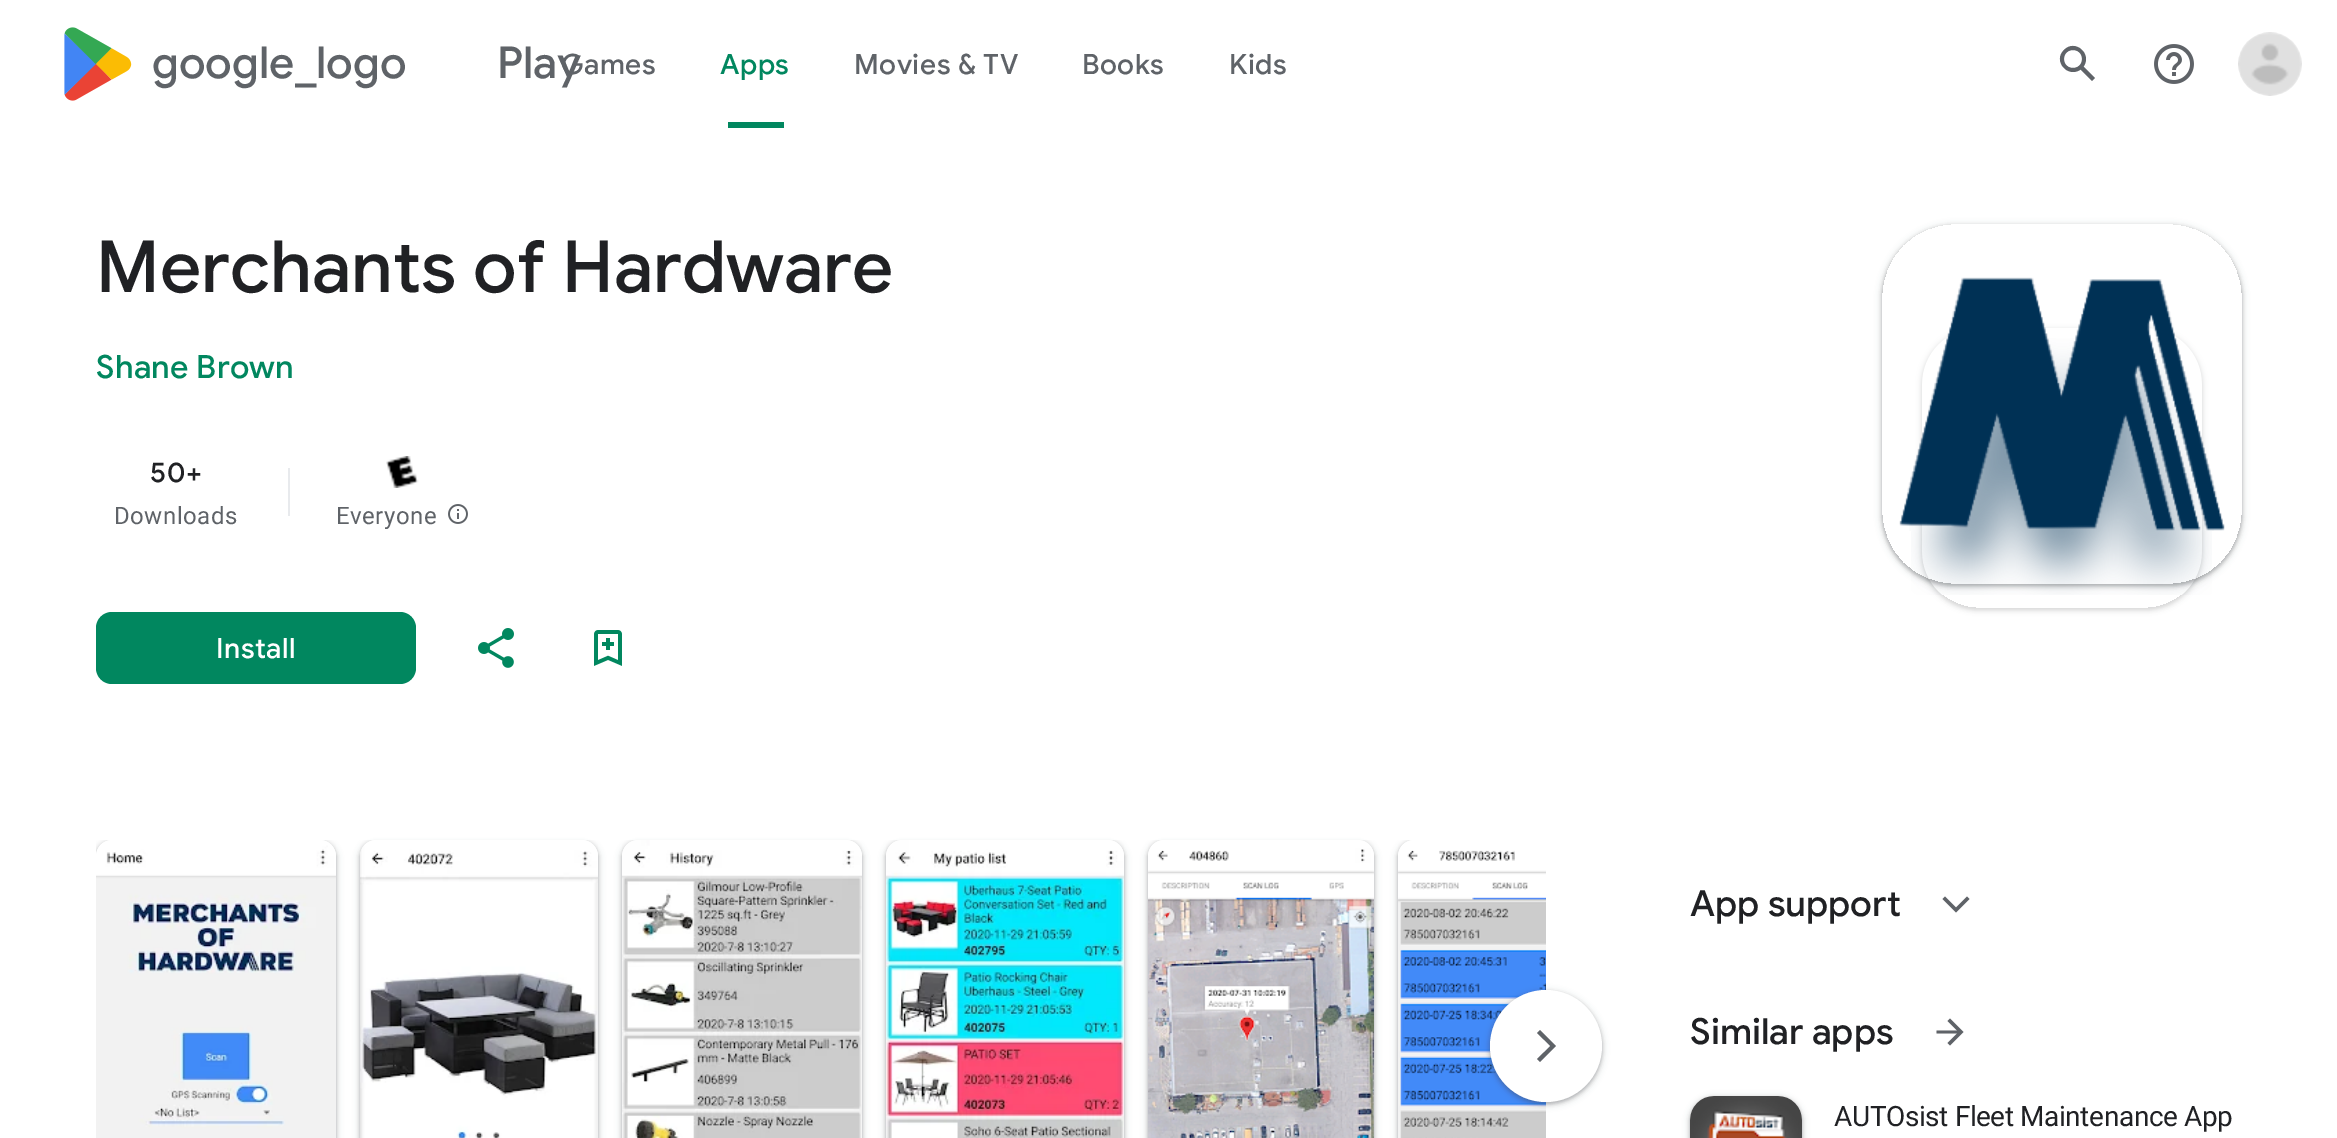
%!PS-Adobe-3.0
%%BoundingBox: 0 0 2337 1138
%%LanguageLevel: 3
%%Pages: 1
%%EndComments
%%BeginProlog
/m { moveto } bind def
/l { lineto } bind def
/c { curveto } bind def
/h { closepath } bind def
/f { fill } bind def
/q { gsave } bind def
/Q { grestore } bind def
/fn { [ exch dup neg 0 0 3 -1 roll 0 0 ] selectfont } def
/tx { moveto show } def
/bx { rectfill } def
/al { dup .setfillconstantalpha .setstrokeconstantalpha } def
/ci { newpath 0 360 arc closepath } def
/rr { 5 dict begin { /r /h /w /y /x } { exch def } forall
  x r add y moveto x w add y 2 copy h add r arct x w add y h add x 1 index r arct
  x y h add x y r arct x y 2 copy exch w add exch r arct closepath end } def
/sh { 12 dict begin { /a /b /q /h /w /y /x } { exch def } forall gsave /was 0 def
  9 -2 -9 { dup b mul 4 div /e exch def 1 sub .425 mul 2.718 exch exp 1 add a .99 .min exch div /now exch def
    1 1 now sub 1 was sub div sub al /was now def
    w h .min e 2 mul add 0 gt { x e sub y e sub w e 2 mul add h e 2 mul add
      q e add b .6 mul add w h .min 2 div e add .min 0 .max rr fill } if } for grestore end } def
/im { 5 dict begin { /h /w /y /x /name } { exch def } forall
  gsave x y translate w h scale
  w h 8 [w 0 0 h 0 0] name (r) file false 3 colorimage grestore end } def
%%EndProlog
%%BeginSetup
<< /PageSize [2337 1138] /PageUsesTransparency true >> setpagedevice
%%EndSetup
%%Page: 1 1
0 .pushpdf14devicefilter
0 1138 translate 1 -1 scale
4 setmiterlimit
1 setgray
0 0 2337 1138 bx
(image0.raw) 64 27 68 74 im
/GoogleSans-Medium 44 fn
0.373 0.388 0.408 setrgbcolor
152 78 m 110 0 32 (google_logo) widthshow
497 78 m 110 0 32 (Play) widthshow
/GoogleSans-Medium 28 fn
561 74 m 0.5 0 (Games) ashow
0.004 0.529 0.373 setrgbcolor
720 74 m 0.5 0 (Apps) ashow
728 122 56 6 bx
0.373 0.388 0.408 setrgbcolor
854 74 m 0.5 0 (Movies & TV) ashow
1082 74 m 0.5 0 (Books) ashow
1229 74 m 0.5 0 (Kids) ashow
2095 78 m 2083.5 66.5 l 2092.5 54 2075 38.5 2064 50 c 2052.5 61 2068 78.5 2080.5 69.5 c 2092 81 l h 2064 59 m 2064 47 2082 47 2082 59 c 2082 71 2064 71 2064 59 c h f
(image1.raw) 2154 44 40 40 im
(image2.raw) 2238 32 64 64 im
/GoogleSans-Medium 72 fn
0.125 0.129 0.141 setrgbcolor
(Merchants of Hardware) 96 292 tx
/GoogleSans-Medium 32 fn
0.004 0.529 0.373 setrgbcolor
96 378 m 0.25 0 (Shane Brown) ashow
/GoogleSans-Medium 28 fn
0.125 0.129 0.141 setrgbcolor
150 482 m 0.5 0 (50+) ashow
/Roboto-Regular 24 fn
0.373 0.388 0.408 setrgbcolor
114 524 m 0.5 0 (Downloads) ashow
0.91 0.918 0.929 setrgbcolor
288 468 2 48 bx
(image3.raw) 386 456 33 32 im
0.373 0.388 0.408 setrgbcolor
336 524 m 0.5 0 (Everyone) ashow
(image4.raw) 448 504 20 20 im
q
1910 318 m 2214 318 l 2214 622 l 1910 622 l h 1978 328 m 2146 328 l 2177 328 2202 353 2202 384 c 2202 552 l 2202 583 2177 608 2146 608 c 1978 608 l 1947 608 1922 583 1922 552 c 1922 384 l 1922 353 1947 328 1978 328 c h eoclip newpath
0.62 0.627 0.631 setrgbcolor
1920 328 284 284 58 3 0.15 sh
Q
q
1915 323 m 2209 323 l 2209 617 l 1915 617 l h 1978 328 m 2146 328 l 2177 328 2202 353 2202 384 c 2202 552 l 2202 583 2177 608 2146 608 c 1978 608 l 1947 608 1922 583 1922 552 c 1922 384 l 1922 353 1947 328 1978 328 c h eoclip newpath
0.62 0.627 0.631 setrgbcolor
1922 330 280 280 56 2 0.3 sh
Q
(image6.raw) 1911 347 301 248 im
q
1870 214 m 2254 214 l 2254 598 l 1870 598 l h 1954 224 m 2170 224 l 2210 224 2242 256 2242 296 c 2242 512 l 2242 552 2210 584 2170 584 c 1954 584 l 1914 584 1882 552 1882 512 c 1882 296 l 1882 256 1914 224 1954 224 c h eoclip newpath
0.235 0.251 0.263 setrgbcolor
1880 224 364 364 74 3 0.15 sh
Q
q
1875 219 m 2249 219 l 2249 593 l 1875 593 l h 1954 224 m 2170 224 l 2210 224 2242 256 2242 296 c 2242 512 l 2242 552 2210 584 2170 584 c 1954 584 l 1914 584 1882 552 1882 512 c 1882 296 l 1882 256 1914 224 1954 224 c h eoclip newpath
0.235 0.251 0.263 setrgbcolor
1882 226 360 360 72 2 0.3 sh
Q
(image5.raw) 1899 277 326 254 im
0.004 0.529 0.373 setrgbcolor
96 612 320 72 16 rr f
/GoogleSans-Medium 28 fn
1 setgray
216 658 m 0.5 0 (Install) ashow
(image7.raw) 478 628 36 40 im
(image8.raw) 594 630 28 36 im
q
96 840 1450 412 rectclip
0.235 0.251 0.263 setrgbcolor
94 840 244 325 18 3 0.15 sh
96 842 240 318 16 2 0.3 sh
Q
(image9.raw) 96 840 240 298 im
q
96 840 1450 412 rectclip
0.235 0.251 0.263 setrgbcolor
358 840 242 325 18 3 0.15 sh
Q
0.235 0.251 0.263 setrgbcolor
360 842 238 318 16 2 0.3 sh
(image10.raw) 360 840 238 298 im
q
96 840 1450 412 rectclip
620 840 244 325 18 3 0.15 sh
Q
622 842 240 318 16 2 0.3 sh
(image11.raw) 622 840 240 298 im
q
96 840 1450 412 rectclip
884 840 242 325 18 3 0.15 sh
Q
886 842 238 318 16 2 0.3 sh
(image12.raw) 886 840 238 298 im
q
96 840 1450 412 rectclip
1146 840 230 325 18 3 0.15 sh
Q
1148 842 226 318 16 2 0.3 sh
(image13.raw) 1148 840 226 298 im
q
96 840 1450 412 rectclip
1396 840 228 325 18 3 0.15 sh
1398 842 224 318 16 2 0.3 sh
Q
(image14.raw) 1398 840 148 298 im
1488 990 116 116 58 3 0.15 sh
1490 992 112 112 56 2 0.3 sh
1 setgray
1546 1046 56 ci f
0.373 0.388 0.408 setrgbcolor
1537 1059 m 1540 1062 l 1556 1046 l 1540 1030 l 1537 1033 l 1550.5 1046 l h f
/GoogleSans-Medium 36 fn
0.125 0.129 0.141 setrgbcolor
(App support) 1690 916 tx
0.373 0.388 0.408 setrgbcolor
1945 896.5 m 1942.5 899 l 1956 912.5 l 1969.5 899 l 1967 896.5 l 1956 907.5 l h f
0.125 0.129 0.141 setrgbcolor
(Similar apps) 1690 1044 tx
0.373 0.388 0.408 setrgbcolor
1950 1018.5 m 1947.5 1021 l 1957 1030.5 l 1936.5 1030.5 l 1936.5 1033.5 l 1957 1033.5 l 1947.5 1043 l 1950 1045.5 l 1963.5 1032 l h f
0.235 0.251 0.263 setrgbcolor
1688 1096 116 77 26 3 0.15 sh
1690 1098 112 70 24 2 0.3 sh
(image15.raw) 1690 1096 112 42 im
/Roboto-Regular 28 fn
0.125 0.129 0.141 setrgbcolor
1834 1126 m -0.4 0 (AUTOsist Fleet Maintenance App) ashow
.poppdf14devicefilter showpage
%%EOF
